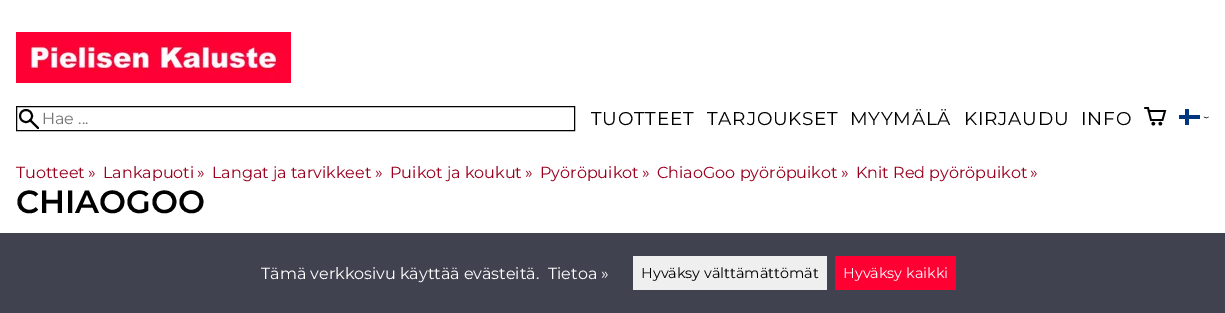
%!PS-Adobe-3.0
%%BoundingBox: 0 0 1225 313
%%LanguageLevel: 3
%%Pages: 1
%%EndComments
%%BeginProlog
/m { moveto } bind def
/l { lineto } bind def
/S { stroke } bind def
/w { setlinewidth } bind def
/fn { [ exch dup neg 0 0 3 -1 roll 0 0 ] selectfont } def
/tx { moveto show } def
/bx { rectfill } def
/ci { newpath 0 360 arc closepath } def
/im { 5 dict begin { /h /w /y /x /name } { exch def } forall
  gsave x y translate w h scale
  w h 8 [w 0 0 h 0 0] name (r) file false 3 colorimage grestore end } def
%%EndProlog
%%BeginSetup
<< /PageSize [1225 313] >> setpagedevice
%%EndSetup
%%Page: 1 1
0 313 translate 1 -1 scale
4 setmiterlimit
1 setgray
0 0 1225 313 bx
(image0.raw) 16 32 275 51 im
0 setgray
16.5 106.5 558 24 rectstroke
1.9 w
1 setlinecap
38 128 m 30 120 l S
0 setlinecap
26 116 6 ci S
/Montserrat-Thin 16 fn
0.459 setgray
(Hae ...) 42 124 tx
/Montserrat-Thin 18.5 fn
0 setgray
591 125 m 0.75 0 (TUOTTEET) ashow
707 125 m 0.75 0 (TARJOUKSET) ashow
850 125 m 0.75 0 (MYYMÄLÄ) ashow
964 125 m 0.75 0 (KIRJAUDU) ashow
1081 125 m 0.75 0 (INFO) ashow
1.7 w
1 setlinecap
1148.5 111 m 1165 111 l 1162.5 120 l 1151 120 l 1148 108 l 1145 108 l S
0 setlinecap
1153.3 123.7 0.9 ci S
1160.3 123.7 0.9 ci S
0 0.208 0.502 setrgbcolor
1179 115 21 4 bx
1185 109 4 16 bx
0 setgray
0.4 w
1 setlinecap
1204 117 m 1206.5 118 l 1208.5 117 l S
/Montserrat-Thin 16 fn
0.6 0 0.118 setrgbcolor
(Tuotteet) 16 178 tx
(») 88 178 tx
(Lankapuoti) 103 178 tx
(») 197 178 tx
(Langat ja tarvikkeet) 212 178 tx
(») 375 178 tx
(Puikot ja koukut) 390 178 tx
(») 525 178 tx
(Pyöröpuikot) 540 178 tx
(») 642 178 tx
(ChiaoGoo pyöröpuikot) 657 178 tx
(») 841 178 tx
(Knit Red pyöröpuikot) 856 178 tx
(») 1030 178 tx
/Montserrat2-Thin 32 fn
0 setgray
(CHIAOGOO) 16 213 tx
0.255 0.259 0.31 setrgbcolor
0 233 1225 80 bx
/Montserrat-Thin 16 fn
1 setgray
(Tämä verkkosivu käyttää evästeitä.) 261 279 tx
(Tietoa ») 548 279 tx
0.937 setgray
633 256 194 34 bx
/Montserrat-Thin 14.4 fn
0 setgray
(Hyväksy välttämättömät) 641 278 tx
1 0 0.2 setrgbcolor
835 256 121 34 bx
1 setgray
(Hyväksy kaikki) 843 278 tx
showpage
%%EOF
